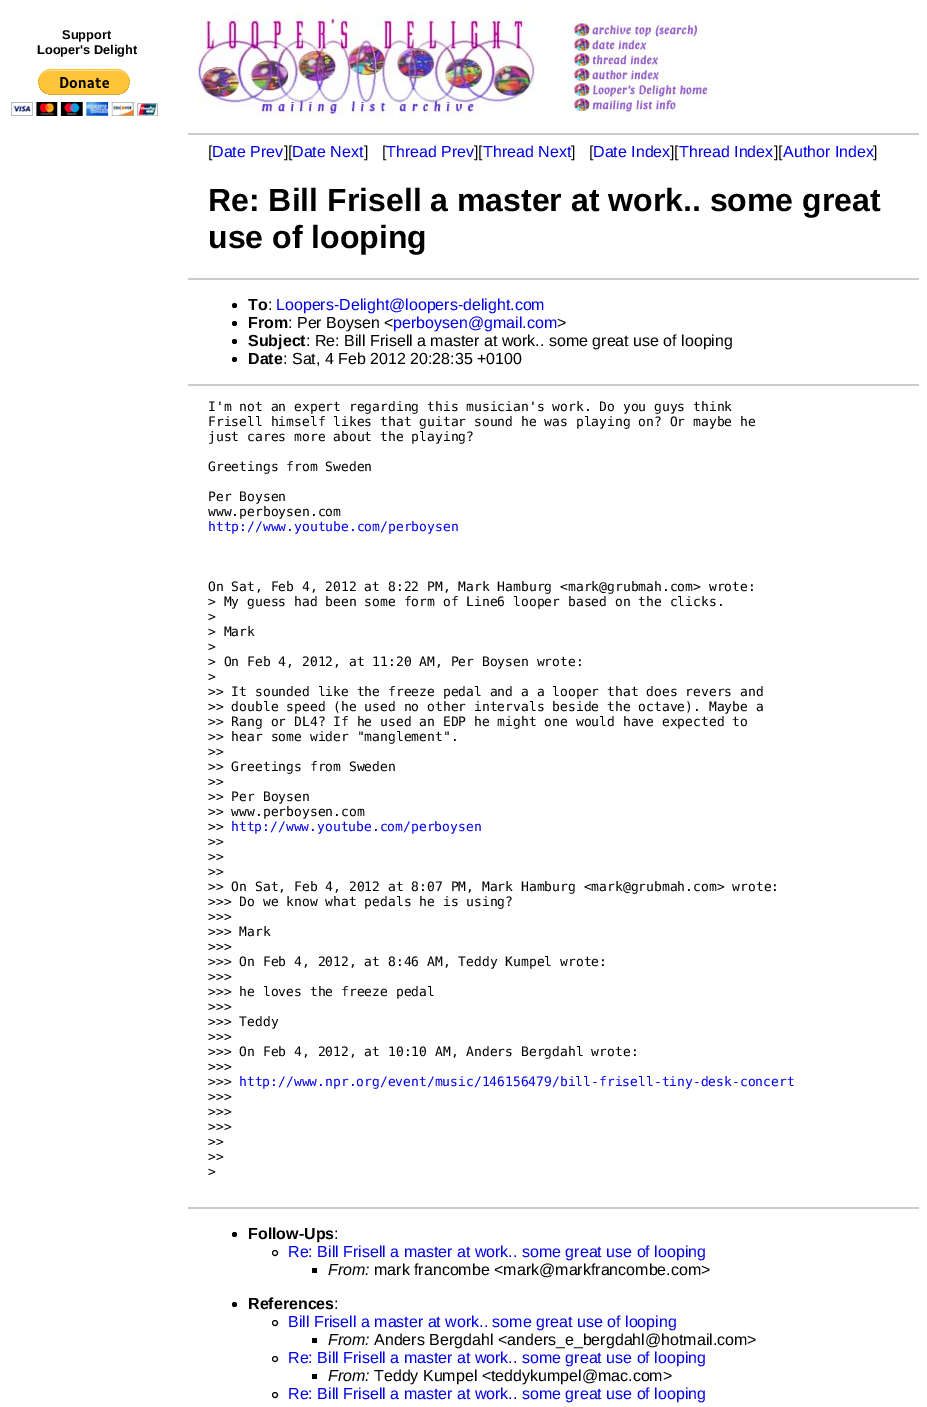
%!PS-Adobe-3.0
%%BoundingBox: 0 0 927 1407
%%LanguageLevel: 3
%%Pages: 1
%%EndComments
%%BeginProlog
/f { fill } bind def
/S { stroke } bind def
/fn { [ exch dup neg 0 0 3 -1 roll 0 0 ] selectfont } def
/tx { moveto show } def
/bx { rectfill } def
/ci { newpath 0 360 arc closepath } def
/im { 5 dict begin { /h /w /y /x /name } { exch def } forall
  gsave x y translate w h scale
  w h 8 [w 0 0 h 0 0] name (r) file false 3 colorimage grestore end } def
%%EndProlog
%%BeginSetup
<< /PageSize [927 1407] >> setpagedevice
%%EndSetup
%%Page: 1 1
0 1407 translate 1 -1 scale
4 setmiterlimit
1 setgray
0 0 927 1407 bx
/LiberationSans-Bold 12.75 fn
0 setgray
(Support) 62 39 tx
(Looper's Delight) 37 54 tx
(image0.raw) 11 69 147 47 im
(image1.raw) 197 11 338 111 im
(image2.raw) 568 19 136 18 im
(image3.raw) 568 37 80 15 im
(image4.raw) 568 52 96 15 im
(image5.raw) 568 67 96 15 im
(image6.raw) 568 82 144 15 im
(image7.raw) 568 97 112 16 im
0.8 setgray
188 133 731 2 bx
/LiberationSans-Regular 16 fn
0 setgray
([) 208 157 tx
0 0 0.933 setrgbcolor
(Date Prev) 212 157 tx
0 setgray
(][) 284 157 tx
0 0 0.933 setrgbcolor
(Date Next) 292 157 tx
0 setgray
(]   [) 364 157 tx
0 0 0.933 setrgbcolor
(Thread Prev) 386 157 tx
0 setgray
(][) 474 157 tx
0 0 0.933 setrgbcolor
(Thread Next) 483 157 tx
0 setgray
(]   [) 571 157 tx
0 0 0.933 setrgbcolor
(Date Index) 593 157 tx
0 setgray
(][) 670 157 tx
0 0 0.933 setrgbcolor
(Thread Index) 679 157 tx
0 setgray
(][) 774 157 tx
0 0 0.933 setrgbcolor
(Author Index) 783 157 tx
0 setgray
(]) 873 157 tx
/LiberationSans-Bold 32 fn
(Re: Bill Frisell a master at work.. some great) 208 211 tx
(use of looping) 208 248 tx
0.8 setgray
188 278 731 2 bx
0 setgray
234.5 305.5 2.5 ci f
/LiberationSans-Bold 16 fn
(To) 248 310 tx
/LiberationSans-Regular 16 fn
(:) 268 310 tx
0 0 0.933 setrgbcolor
(Loopers-Delight@loopers-delight.com) 276 310 tx
0 setgray
234.5 323.5 2.5 ci f
/LiberationSans-Bold 16 fn
(From) 248 328 tx
/LiberationSans-Regular 16 fn
(: Per Boysen <) 288 328 tx
0 0 0.933 setrgbcolor
(perboysen@gmail.com) 393 328 tx
0 setgray
(>) 557 328 tx
234.5 341.5 2.5 ci f
/LiberationSans-Bold 16 fn
(Subject) 248 346 tx
/LiberationSans-Regular 16 fn
(: Re: Bill Frisell a master at work.. some great use of looping) 306 346 tx
234.5 359.5 2.5 ci f
/LiberationSans-Bold 16 fn
(Date) 248 364 tx
/LiberationSans-Regular 16 fn
(: Sat, 4 Feb 2012 20:28:35 +0100) 283 364 tx
0.8 setgray
188 384 731 2 bx
/DejaVuSansMono-Regular 13 fn
0 setgray
(I'm not an expert regarding this musician's work. Do you guys think) 208 411 tx
(Frisell himself likes that guitar sound he was playing on? Or maybe he) 208 426 tx
(just cares more about the playing?) 208 441 tx
(Greetings from Sweden) 208 471 tx
(Per Boysen) 208 501 tx
(www.perboysen.com) 208 516 tx
0 0 0.933 setrgbcolor
(http://www.youtube.com/perboysen) 208 531 tx
0 setgray
(On Sat, Feb 4, 2012 at 8:22 PM, Mark Hamburg <mark@grubmah.com> wrote:) 208 591 tx
(> My guess had been some form of Line6 looper based on the clicks.) 208 606 tx
(>) 208 621 tx
(> Mark) 208 636 tx
(>) 208 651 tx
(> On Feb 4, 2012, at 11:20 AM, Per Boysen wrote:) 208 666 tx
(>) 208 681 tx
(>> It sounded like the freeze pedal and a a looper that does revers and) 208 696 tx
(>> double speed \(he used no other intervals beside the octave\). Maybe a) 208 711 tx
(>> Rang or DL4? If he used an EDP he might one would have expected to) 208 726 tx
(>> hear some wider "manglement".) 208 741 tx
(>>) 208 756 tx
(>> Greetings from Sweden) 208 771 tx
(>>) 208 786 tx
(>> Per Boysen) 208 801 tx
(>> www.perboysen.com) 208 816 tx
(>>) 208 831 tx
0 0 0.933 setrgbcolor
(http://www.youtube.com/perboysen) 231 831 tx
0 setgray
(>>) 208 846 tx
(>>) 208 861 tx
(>>) 208 876 tx
(>> On Sat, Feb 4, 2012 at 8:07 PM, Mark Hamburg <mark@grubmah.com> wrote:) 208 891 tx
(>>> Do we know what pedals he is using?) 208 906 tx
(>>>) 208 921 tx
(>>> Mark) 208 936 tx
(>>>) 208 951 tx
(>>> On Feb 4, 2012, at 8:46 AM, Teddy Kumpel wrote:) 208 966 tx
(>>>) 208 981 tx
(>>> he loves the freeze pedal) 208 996 tx
(>>>) 208 1011 tx
(>>> Teddy) 208 1026 tx
(>>>) 208 1041 tx
(>>> On Feb 4, 2012, at 10:10 AM, Anders Bergdahl wrote:) 208 1056 tx
(>>>) 208 1071 tx
(>>>) 208 1086 tx
0 0 0.933 setrgbcolor
(http://www.npr.org/event/music/146156479/bill-frisell-tiny-desk-concert) 239 1086 tx
0 setgray
(>>>) 208 1101 tx
(>>>) 208 1116 tx
(>>>) 208 1131 tx
(>>) 208 1146 tx
(>>) 208 1161 tx
(>) 208 1176 tx
0.8 setgray
188 1207 731 2 bx
0 setgray
234.5 1234.5 2.5 ci f
/LiberationSans-Bold 16 fn
(Follow-Ups) 248 1239 tx
/LiberationSans-Regular 16 fn
(:) 334 1239 tx
275 1253 2.5 ci S
0 0 0.933 setrgbcolor
(Re: Bill Frisell a master at work.. some great use of looping) 288 1257 tx
0 setgray
312 1268 5 5 bx
/LiberationSans-Italic 16 fn
(From:) 328 1275 tx
/LiberationSans-Regular 16 fn
(mark francombe <mark@markfrancombe.com>) 374 1275 tx
234.5 1304.5 2.5 ci f
/LiberationSans-Bold 16 fn
(References) 248 1309 tx
/LiberationSans-Regular 16 fn
(:) 334 1309 tx
275 1323 2.5 ci S
0 0 0.933 setrgbcolor
(Bill Frisell a master at work.. some great use of looping) 288 1327 tx
0 setgray
312 1338 5 5 bx
/LiberationSans-Italic 16 fn
(From:) 328 1345 tx
/LiberationSans-Regular 16 fn
(Anders Bergdahl <anders_e_bergdahl@hotmail.com>) 374 1345 tx
275 1359 2.5 ci S
0 0 0.933 setrgbcolor
(Re: Bill Frisell a master at work.. some great use of looping) 288 1363 tx
0 setgray
312 1374 5 5 bx
/LiberationSans-Italic 16 fn
(From:) 328 1381 tx
/LiberationSans-Regular 16 fn
(Teddy Kumpel <teddykumpel@mac.com>) 374 1381 tx
275 1395 2.5 ci S
0 0 0.933 setrgbcolor
(Re: Bill Frisell a master at work.. some great use of looping) 288 1399 tx
showpage
%%EOF
